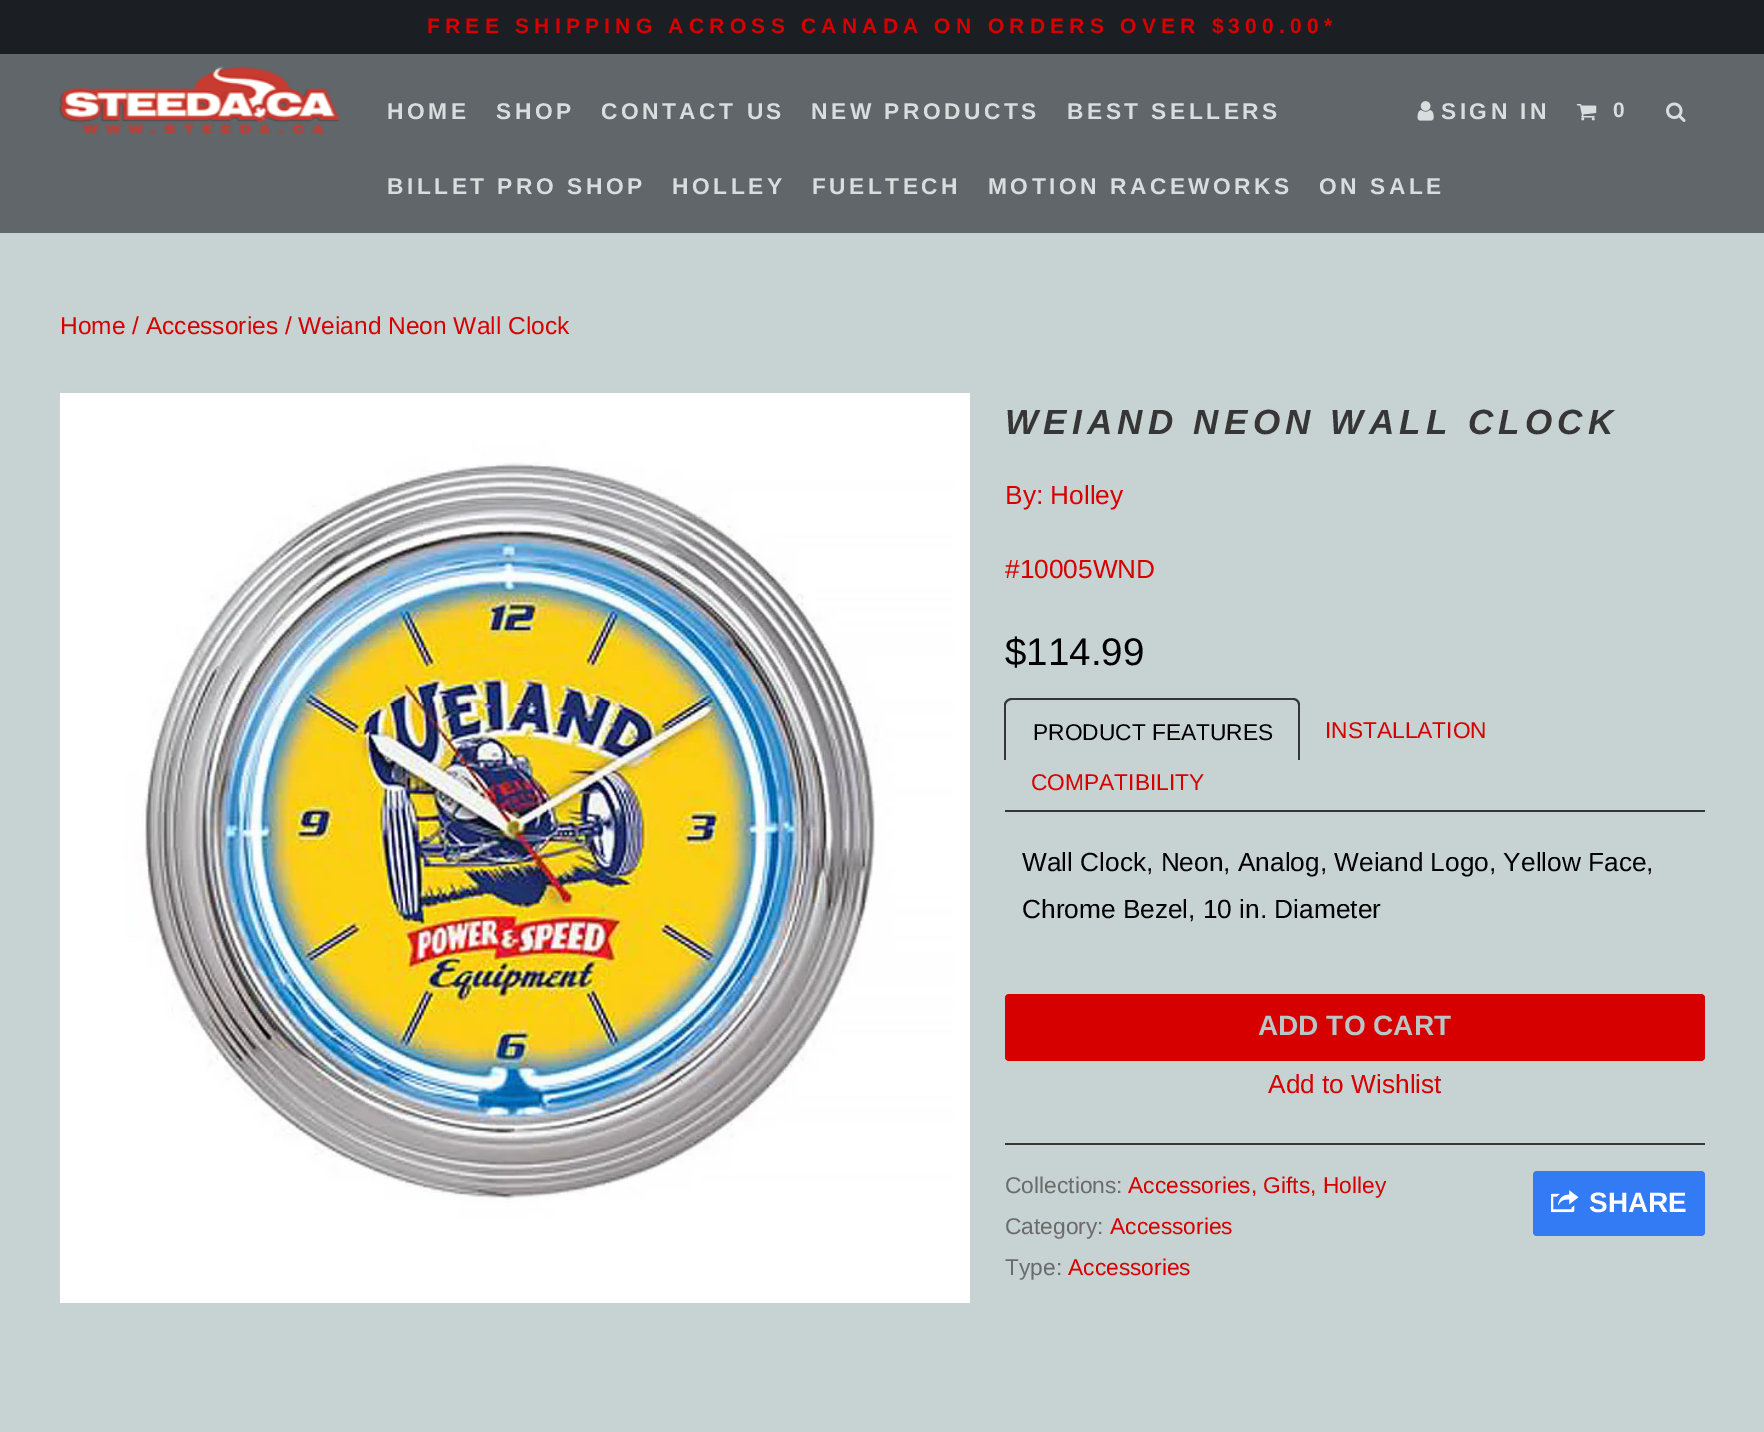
%!PS-Adobe-3.0
%%BoundingBox: 0 0 1764 1432
%%LanguageLevel: 3
%%Pages: 1
%%EndComments
%%BeginProlog
/m { moveto } bind def
/l { lineto } bind def
/c { curveto } bind def
/h { closepath } bind def
/f { fill } bind def
/fn { [ exch dup neg 0 0 3 -1 roll 0 0 ] selectfont } def
/tx { moveto show } def
/bx { rectfill } def
/rr { 5 dict begin { /r /h /w /y /x } { exch def } forall
  x r add y moveto x w add y 2 copy h add r arct x w add y h add x 1 index r arct
  x y h add x y r arct x y 2 copy exch w add exch r arct closepath end } def
/im { 5 dict begin { /h /w /y /x /name } { exch def } forall
  gsave x y translate w h scale
  w h 8 [w 0 0 h 0 0] name (r) file false 3 colorimage grestore end } def
%%EndProlog
%%BeginSetup
<< /PageSize [1764 1432] >> setpagedevice
%%EndSetup
%%Page: 1 1
0 1432 translate 1 -1 scale
4 setmiterlimit
0.78 0.824 0.824 setrgbcolor
0 0 1764 1432 bx
0.106 0.122 0.137 setrgbcolor
0 0 1764 54 bx
/LiberationSans-Bold 21 fn
0.839 0 0 setrgbcolor
427 33 m 5.25 0 (FREE SHIPPING ACROSS CANADA ON ORDERS OVER $300.00*) ashow
0.376 0.4 0.412 setrgbcolor
0 54 1764 179 bx
(image0.raw) 59 66 281 68 im
/LiberationSans-Bold 22.75 fn
0.843 0.871 0.871 setrgbcolor
387 119 m 3.5 0 (HOME) ashow
496 119 m 3.5 0 (SHOP) ashow
601 119 m 3.5 0 (CONTACT US) ashow
811 119 m 3.5 0 (NEW PRODUCTS) ashow
1067 119 m 3.5 0 (BEST SELLERS) ashow
387 194 m 3.5 0 (BILLET PRO SHOP) ashow
672 194 m 3.5 0 (HOLLEY) ashow
812 194 m 3.5 0 (FUELTECH) ashow
988 194 m 3.5 0 (MOTION RACEWORKS) ashow
1319 194 m 3.5 0 (ON SALE) ashow
(image1.raw) 1417 101 17 20 im
1441 119 m 3.5 0 (SIGN IN) ashow
(image2.raw) 1576 104 21 17 im
/LiberationSans-Bold 21 fn
1613 117 m 3.5 0 (0) ashow
(image3.raw) 1666 102 20 20 im
/LiberationSans-Regular 24.5 fn
0.839 0 0 setrgbcolor
(Home / Accessories / Weiand Neon Wall Clock) 60 334 tx
(image4.raw) 60 393 910 910 im
/LiberationSans-BoldItalic 35 fn
0.212 setgray
1005 434 m 5.25 0 (WEIAND NEON WALL CLOCK) ashow
/LiberationSans-Regular 26.25 fn
0.839 0 0 setrgbcolor
(By: Holley) 1005 504 tx
(#10005WND) 1005 578 tx
/LiberationSans-Regular 38.5 fn
0 setgray
($114.99) 1005 665 tx
0.212 setgray
1005 810 700 2 bx
1012 698 m 1293 698 l 1297 698 1300 701 1300 705 c 1300 760 l 1004 760 l 1004 705 l 1004 701 1008 698 1012 698 c h 1012 700 m 1293 700 l 1296 700 1298 702 1298 705 c 1298 760 l 1006 760 l 1006 705 l 1006 702 1009 700 1012 700 c h eofill
/LiberationSans-Regular 22.75 fn
0 setgray
(PRODUCT FEATURES) 1033 740 tx
0.839 0 0 setrgbcolor
(INSTALLATION) 1325 738 tx
(COMPATIBILITY) 1031 790 tx
/LiberationSans-Regular 26.25 fn
0 setgray
(Wall Clock, Neon, Analog, Weiand Logo, Yellow Face,) 1022 871 tx
(Chrome Bezel, 10 in. Diameter) 1022 918 tx
0.839 0 0 setrgbcolor
1005 994 700 67 4 rr f
/LiberationSans-Bold 28 fn
0.722 0.776 0.776 setrgbcolor
(ADD TO CART) 1258 1035 tx
/LiberationSans-Regular 26.25 fn
0.839 0 0 setrgbcolor
(Add to Wishlist) 1268 1093 tx
0.212 setgray
1005 1143 700 2 bx
/LiberationSans-Regular 22.75 fn
0.42 setgray
(Collections:) 1005 1193 tx
0.839 0 0 setrgbcolor
(Accessories, Gifts, Holley) 1128 1193 tx
0.2 0.478 0.961 setrgbcolor
1533 1171 172 65 4 rr f
(image5.raw) 1551 1190 28 23 im
/LiberationSans-Bold 28 fn
1 setgray
(SHARE) 1589 1212 tx
/LiberationSans-Regular 22.75 fn
0.42 setgray
(Category:) 1005 1234 tx
0.839 0 0 setrgbcolor
(Accessories) 1110 1234 tx
0.42 setgray
(Type:) 1005 1275 tx
0.839 0 0 setrgbcolor
(Accessories) 1068 1275 tx
showpage
%%EOF
